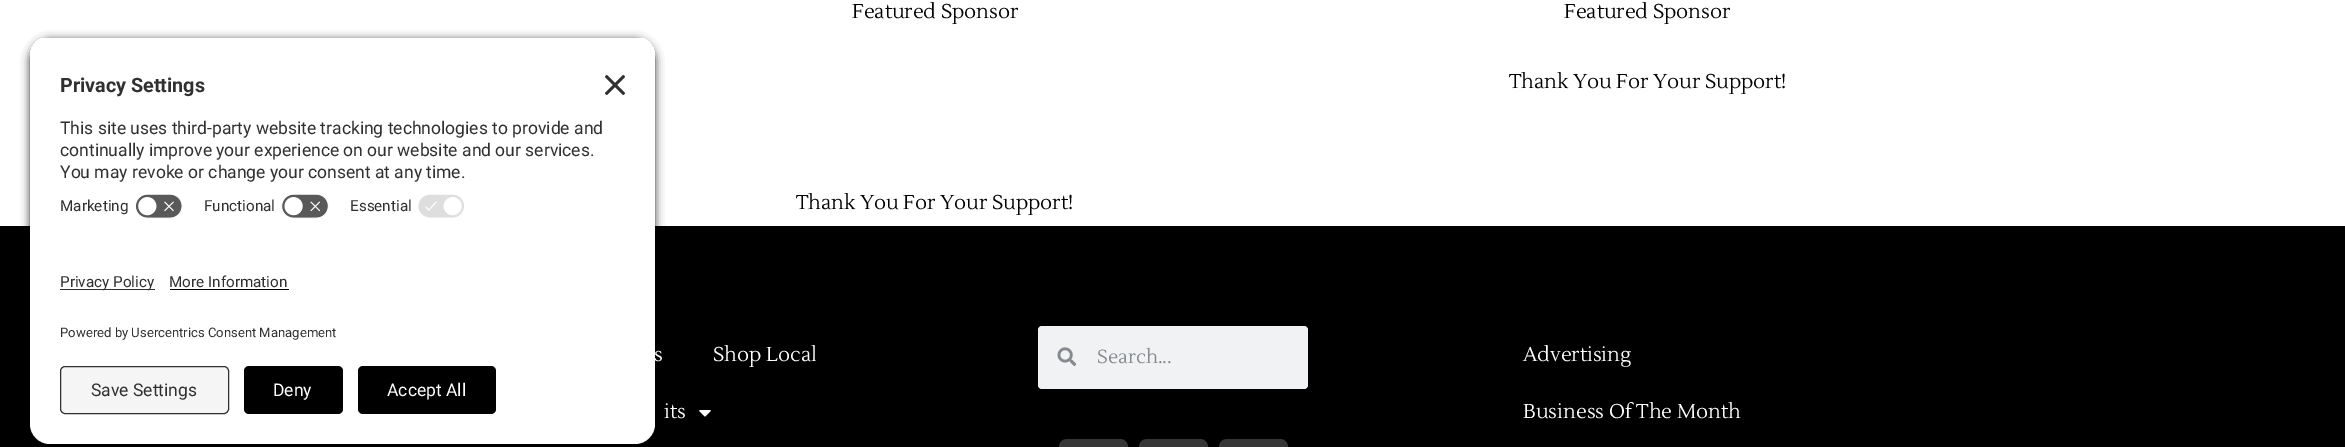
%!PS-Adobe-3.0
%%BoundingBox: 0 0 2345 447
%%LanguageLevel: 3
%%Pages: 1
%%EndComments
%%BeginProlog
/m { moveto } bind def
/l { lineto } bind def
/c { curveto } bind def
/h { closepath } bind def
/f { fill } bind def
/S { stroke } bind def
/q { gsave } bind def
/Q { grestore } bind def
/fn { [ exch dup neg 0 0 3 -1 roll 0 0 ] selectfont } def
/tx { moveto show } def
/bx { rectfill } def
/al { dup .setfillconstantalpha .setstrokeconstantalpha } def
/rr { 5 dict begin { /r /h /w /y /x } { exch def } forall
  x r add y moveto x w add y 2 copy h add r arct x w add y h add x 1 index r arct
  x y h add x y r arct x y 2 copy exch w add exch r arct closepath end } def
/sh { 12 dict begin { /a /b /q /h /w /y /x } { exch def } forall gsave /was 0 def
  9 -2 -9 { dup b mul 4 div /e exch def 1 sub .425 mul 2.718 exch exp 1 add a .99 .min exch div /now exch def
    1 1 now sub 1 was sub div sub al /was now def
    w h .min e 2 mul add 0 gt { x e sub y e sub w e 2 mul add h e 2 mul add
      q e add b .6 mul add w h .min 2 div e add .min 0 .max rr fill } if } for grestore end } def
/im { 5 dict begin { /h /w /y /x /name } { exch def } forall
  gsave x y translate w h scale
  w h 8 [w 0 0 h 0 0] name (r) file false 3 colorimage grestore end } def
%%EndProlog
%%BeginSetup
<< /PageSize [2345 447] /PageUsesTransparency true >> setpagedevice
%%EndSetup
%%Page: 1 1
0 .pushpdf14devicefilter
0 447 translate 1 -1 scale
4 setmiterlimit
1 setgray
0 0 2345 447 bx
0 setgray
0 226 2345 221 bx
30 40 625 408 20 4.5 0.8 sh
q
50 36 m 635 36 l 646 36 655 45 655 56 c 655 239 l 30 239 l 30 56 l 30 45 39 36 50 36 c h clip newpath
1 setgray
30 38 625 201 bx
30 38 625 151 bx
Q
/Roboto-Bold 19.75 fn
0.188 setgray
(Privacy Settings) 60 92 tx
(image0.raw) 605 75 20 20 im
/Roboto-Regular 17.5 fn
(This site uses third-party website tracking technologies to provide and) 60 134 tx
(continually improve your experience on our website and our services.) 60 156 tx
(You may revoke or change your consent at any time.) 60 178 tx
/Roboto-Regular 15.25 fn
(Marketing) 60 211 tx
(image1.raw) 135 194 48 25 im
(Functional) 204 211 tx
(image2.raw) 281 194 48 25 im
(Essential) 350 211 tx
(image3.raw) 418 194 46 24 im
1 setgray
30 239 m 655 239 l 655 424 l 655 435 646 444 635 444 c 50 444 l 39 444 30 435 30 424 c h f
0.188 setgray
60 289 95 1 bx
(Privacy Policy) 60 287 tx
(More Information) 169 287 tx
0 setgray
170 289 119 1 bx
/Roboto-Regular 13.1 fn
0.188 setgray
(Powered by Usercentrics Consent Management) 60 337 tx
0.961 setgray
60.5 366.5 168 47 4.5 rr q f Q
0.188 setgray
S
/Roboto-Regular 17.5 fn
(Save Settings) 91 396 tx
0 setgray
244 366 99 48 5 rr f
1 setgray
(Deny) 273 396 tx
0 setgray
358 366 138 48 5 rr f
1 setgray
(Accept All) 387 396 tx
/Lustria-Regular 20 fn
0 setgray
(Featured Sponsor) 852 18 tx
(Thank You For Your Support!) 796 209 tx
(Featured Sponsor) 1564 18 tx
(Thank You For Your Support!) 1509 88 tx
1 setgray
(s) 654 361 tx
(Shop Local) 713 361 tx
(its) 664 418 tx
(image4.raw) 699 410 12 7 im
0.945 0.949 0.953 setrgbcolor
1038 326 270 63 4 rr f
(image5.raw) 1057 347 20 19 im
/Lustria-Regular 19 fn
0.525 0.541 0.557 setrgbcolor
(Search...) 1097 363 tx
0.212 setgray
1059 439 69 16 8 rr f
1139 439 69 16 8 rr f
1219 439 69 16 8 rr f
/Lustria-Regular 20 fn
1 setgray
(Advertising) 1523 361 tx
(Business Of The Month) 1523 418 tx
.poppdf14devicefilter showpage
%%EOF
